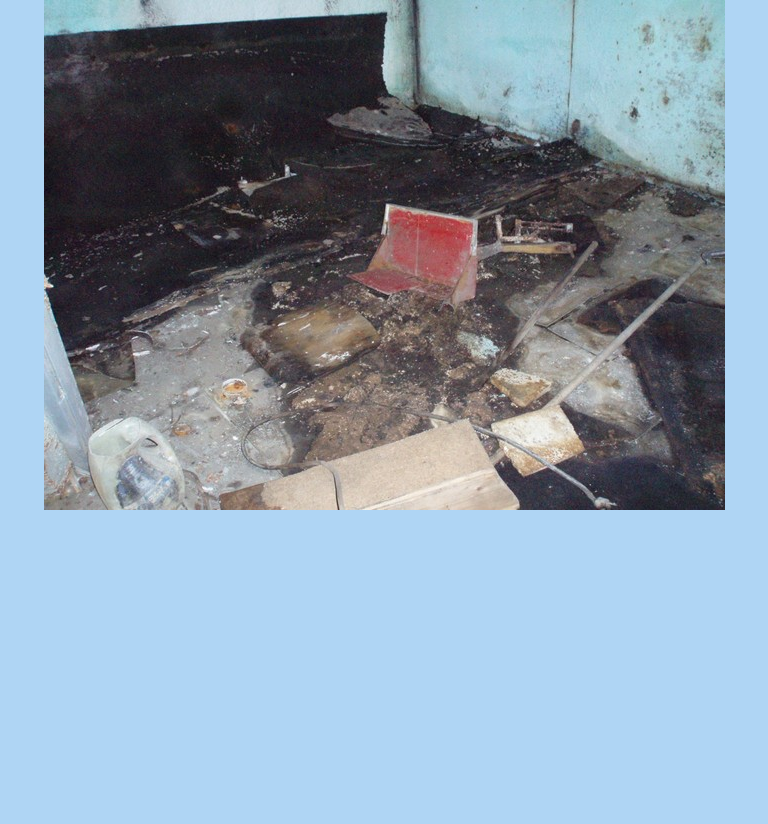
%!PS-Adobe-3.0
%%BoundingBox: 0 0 768 824
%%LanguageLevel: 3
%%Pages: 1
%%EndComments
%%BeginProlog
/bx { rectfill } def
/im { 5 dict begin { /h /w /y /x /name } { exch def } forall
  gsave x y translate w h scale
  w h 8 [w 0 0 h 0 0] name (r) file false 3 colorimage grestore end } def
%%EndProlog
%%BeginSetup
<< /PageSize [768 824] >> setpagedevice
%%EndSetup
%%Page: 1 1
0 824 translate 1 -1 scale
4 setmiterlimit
0.686 0.835 0.957 setrgbcolor
0 0 768 824 bx
(image0.raw) 44 0 681 510 im
showpage
%%EOF
